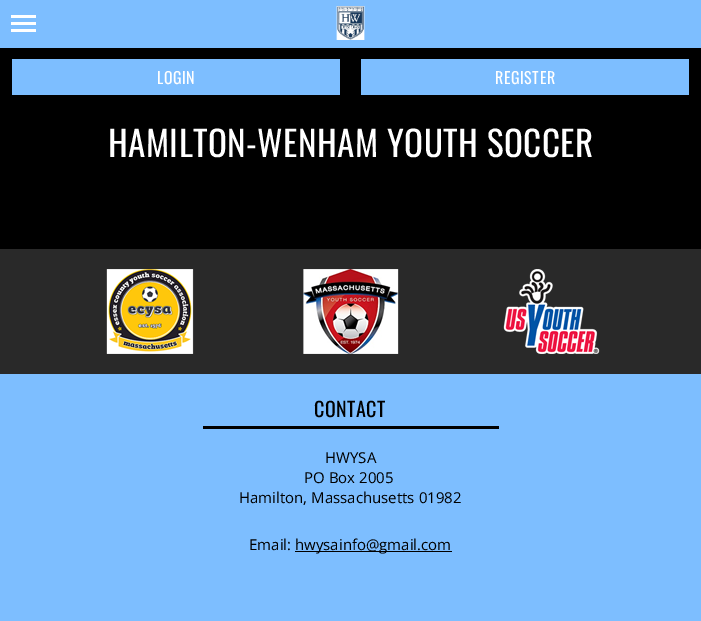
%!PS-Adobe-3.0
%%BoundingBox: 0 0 701 621
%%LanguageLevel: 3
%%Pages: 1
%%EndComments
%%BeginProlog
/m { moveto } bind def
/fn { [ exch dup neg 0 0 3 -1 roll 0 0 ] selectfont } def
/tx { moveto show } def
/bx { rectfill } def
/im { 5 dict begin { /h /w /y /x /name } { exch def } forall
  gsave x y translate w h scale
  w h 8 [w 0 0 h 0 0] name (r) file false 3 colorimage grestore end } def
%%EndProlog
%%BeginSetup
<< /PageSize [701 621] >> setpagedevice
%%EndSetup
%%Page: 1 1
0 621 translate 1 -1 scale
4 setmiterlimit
0 setgray
0 0 701 621 bx
0.49 0.745 1 setrgbcolor
0 0 701 48 bx
(image0.raw) 11 15 25 17 im
(image1.raw) 336 6 29 34 im
12 59 328 36 bx
/Oswald-Regular 16 fn
1 setgray
157 84 m 0.5 0 (LOGIN) ashow
0.49 0.745 1 setrgbcolor
361 59 328 36 bx
1 setgray
495 84 m 0.5 0 (REGISTER) ashow
/Oswald-Regular 35 fn
108 157 m 0.5 0 (HAMILTON-WENHAM YOUTH SOCCER) ashow
0.161 setgray
0 249 701 125 bx
(image2.raw) 106 269 88 85 im
(image3.raw) 303 269 96 85 im
(image4.raw) 503 269 97 85 im
0.49 0.745 1 setrgbcolor
0 374 701 247 bx
/Oswald-Regular 20 fn
0 setgray
314 417 m 0.5 0 (CONTACT) ashow
203 426 296 3 bx
/OpenSans-Regular 15 fn
(HWYSA) 325 463 tx
(PO Box 2005) 304 483 tx
(Hamilton, Massachusetts 01982) 239 503 tx
(Email:) 249 550 tx
295 551 157 1 bx
(hwysainfo@gmail.com) 295 550 tx
showpage
%%EOF
